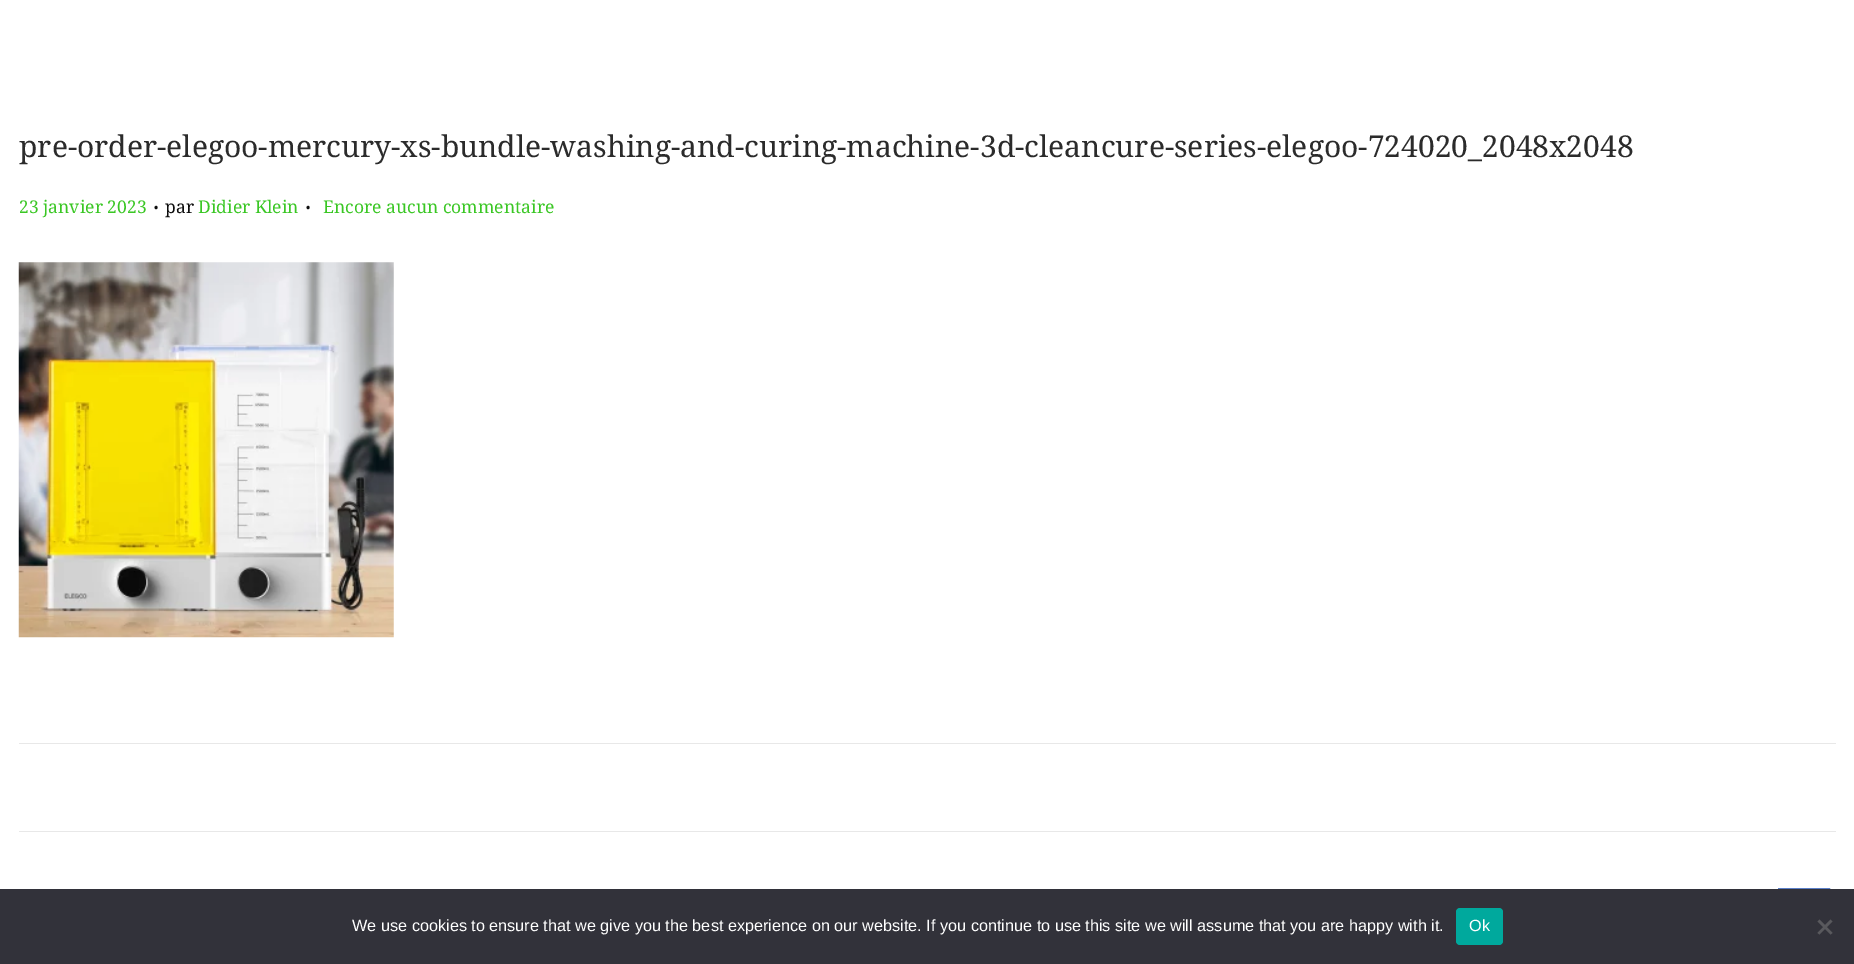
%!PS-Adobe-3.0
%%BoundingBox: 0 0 1854 964
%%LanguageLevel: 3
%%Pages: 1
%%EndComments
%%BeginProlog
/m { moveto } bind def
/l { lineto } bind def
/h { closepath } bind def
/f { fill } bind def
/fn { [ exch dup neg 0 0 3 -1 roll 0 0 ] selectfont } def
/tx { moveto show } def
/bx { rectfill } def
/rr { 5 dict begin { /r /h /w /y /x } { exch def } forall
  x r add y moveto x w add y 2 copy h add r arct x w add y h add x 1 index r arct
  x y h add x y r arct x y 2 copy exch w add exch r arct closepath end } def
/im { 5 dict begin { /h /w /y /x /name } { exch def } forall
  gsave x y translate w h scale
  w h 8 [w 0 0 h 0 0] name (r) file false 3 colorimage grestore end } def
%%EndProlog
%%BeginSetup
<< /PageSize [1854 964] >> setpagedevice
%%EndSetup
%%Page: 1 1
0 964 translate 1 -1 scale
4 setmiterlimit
1 setgray
0 0 1854 964 bx
0.91 setgray
19 743 1817 1 bx
/NotoSerif-Regular 30 fn
0.169 setgray
(pre-order-elegoo-mercury-xs-bundle-washing-and-curing-machine-3d-cleancure-series-elegoo-724020_2048x2048) 19 157 tx
/NotoSerif-Regular 17.5 fn
0.227 0.78 0.141 setrgbcolor
(23 janvier 2023) 19 213 tx
/NotoSerif-Regular 25 fn
0.051 setgray
(.) 153 209 tx
/NotoSerif-Regular 17.5 fn
(par) 165 213 tx
0.227 0.78 0.141 setrgbcolor
(Didier Klein) 198 213 tx
/NotoSerif-Regular 25 fn
0.051 setgray
(.) 305 209 tx
/NotoSerif-Regular 17.5 fn
0.227 0.78 0.141 setrgbcolor
(Encore aucun commentaire) 323 213 tx
(image0.raw) 18 262 376 376 im
0.91 setgray
19 831 1817 1 bx
0.353 0.494 0.78 setrgbcolor
1778.5 888.5 51 51 rectstroke
0.196 0.196 0.227 setrgbcolor
0 889 1854 75 bx
/LiberationSans-Regular 16.25 fn
1 setgray
(We use cookies to ensure that we give you the best experience on our website. If you continue to use this site we will assume that you are happy with it.) 352 931 tx
0 0.663 0.616 setrgbcolor
1456 908 47 37 4 rr f
1 setgray
(Ok) 1469 931 tx
0.349 0.349 0.365 setrgbcolor
1830.5 919.5 m 1832.5 921.5 l 1819.5 934.5 l 1817.5 933 l h f
1817.5 921.5 m 1819.5 919.5 l 1832.5 933 l 1830.5 934.5 l h f
showpage
%%EOF
